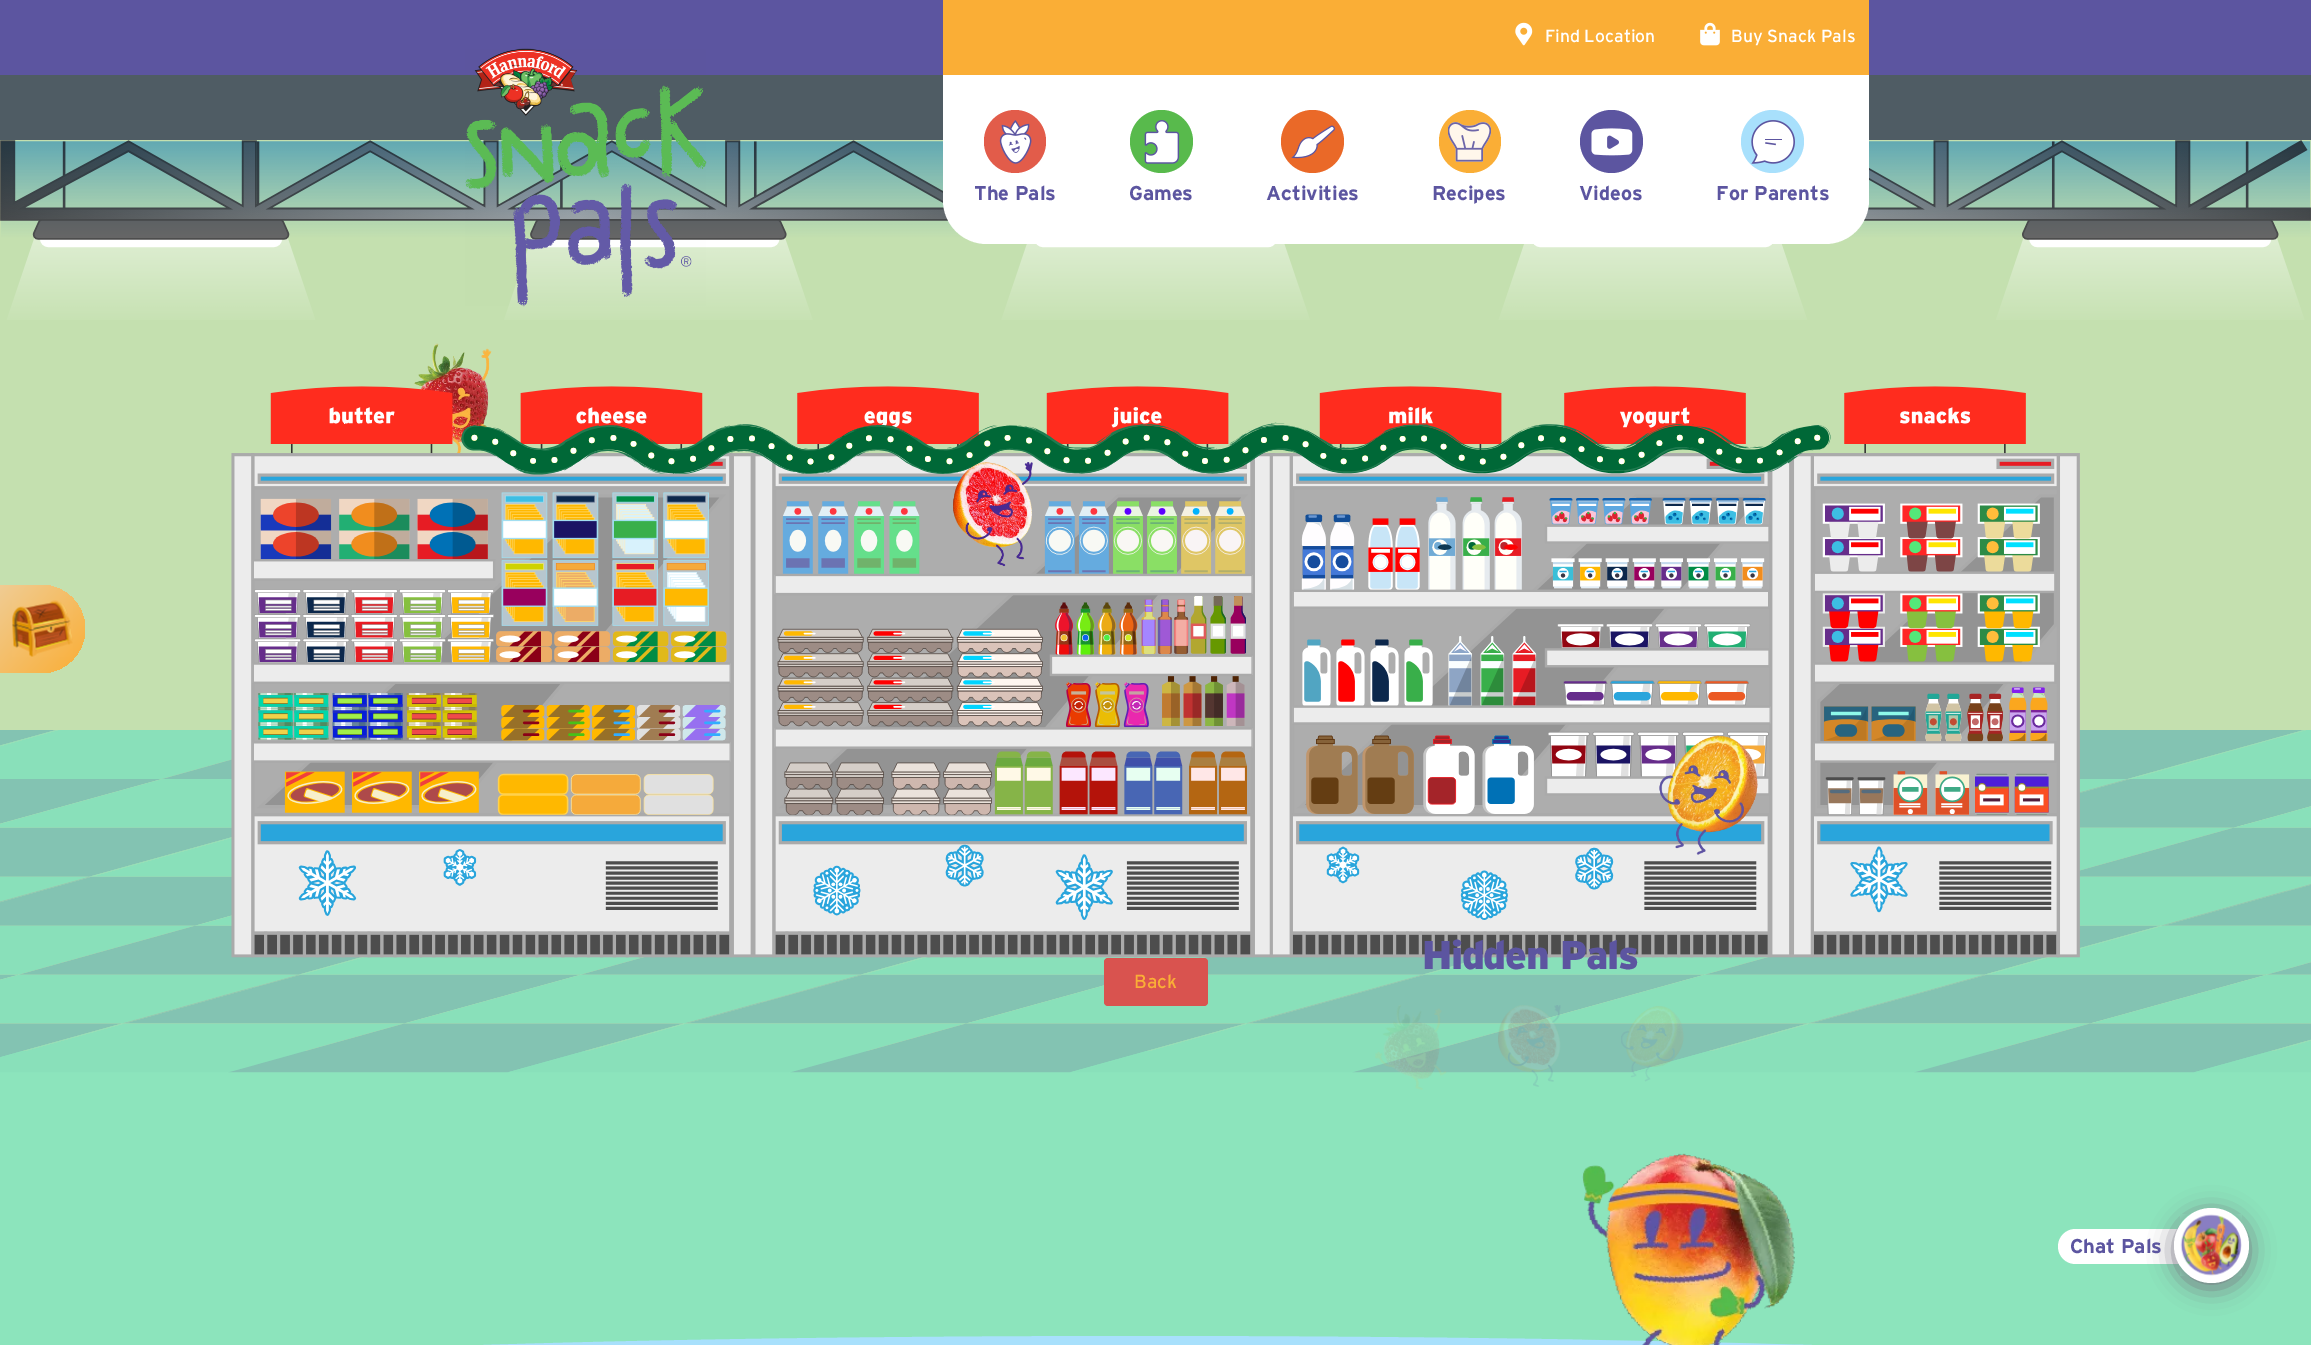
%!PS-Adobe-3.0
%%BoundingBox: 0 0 2311 1345
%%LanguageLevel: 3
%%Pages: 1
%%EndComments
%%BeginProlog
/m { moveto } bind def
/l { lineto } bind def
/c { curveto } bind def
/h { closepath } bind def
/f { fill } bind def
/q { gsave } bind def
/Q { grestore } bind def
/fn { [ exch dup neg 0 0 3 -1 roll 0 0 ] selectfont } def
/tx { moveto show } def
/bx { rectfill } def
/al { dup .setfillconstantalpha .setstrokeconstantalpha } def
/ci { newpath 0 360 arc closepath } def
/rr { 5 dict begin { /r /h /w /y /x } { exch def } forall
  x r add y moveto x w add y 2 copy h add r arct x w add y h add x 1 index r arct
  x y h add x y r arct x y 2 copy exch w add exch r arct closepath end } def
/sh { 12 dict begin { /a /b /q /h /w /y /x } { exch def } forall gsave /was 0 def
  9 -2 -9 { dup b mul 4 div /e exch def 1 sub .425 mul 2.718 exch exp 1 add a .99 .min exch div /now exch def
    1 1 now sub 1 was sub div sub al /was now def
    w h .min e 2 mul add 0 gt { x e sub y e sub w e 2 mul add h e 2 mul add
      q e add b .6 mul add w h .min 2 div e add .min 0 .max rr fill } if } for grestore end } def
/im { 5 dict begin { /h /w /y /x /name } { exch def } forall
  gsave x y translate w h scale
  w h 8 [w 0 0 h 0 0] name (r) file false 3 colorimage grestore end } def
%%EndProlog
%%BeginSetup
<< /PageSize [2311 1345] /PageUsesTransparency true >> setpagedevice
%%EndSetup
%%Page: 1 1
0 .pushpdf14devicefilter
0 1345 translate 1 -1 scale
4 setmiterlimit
0.31 0.361 0.392 setrgbcolor
0 0 2311 1345 bx
0.549 0.894 0.737 setrgbcolor
0 1051 2311 294 bx
0.361 0.333 0.627 setrgbcolor
0 0 2311 75 bx
0.769 0.878 0.686 setrgbcolor
0 140 2311 911 bx
(image10.raw) 0 140 2311 180 im
(image0.raw) 465 48 242 259 im
0.98 0.682 0.212 setrgbcolor
943 0 926 75 bx
(image1.raw) 1515 22 18 24 im
/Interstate-Regular 17.5 fn
1 setgray
(Find Location) 1545 42 tx
(image2.raw) 1700 22 20 24 im
(Buy Snack Pals) 1731 42 tx
q 0 585 m 41 585 l 65.5 585 85 604.5 85 629 c 85 653.5 65.5 673 41 673 c 0 673 l h clip newpath
<< /ShadingType 2 /ColorSpace /DeviceRGB /Coords [-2.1 587 87 670] /Extend [true true] /Function << /FunctionType 2 /Domain [0 1] /C0 [0.941 0.8 0.576] /C1 [0.98 0.682 0.212] /N 1 >> >> shfill Q
(image3.raw) 12 600 61 57 im
943 75 m 1869 75 l 1869 200 l 1869 224.5 1849.5 244 1825 244 c 987 244 l 962.5 244 943 224.5 943 200 c h f
0.886 0.361 0.29 setrgbcolor
984 110 62 63 31 rr f
(image4.raw) 999 120 33 44 im
/Interstate-Bold 20 fn
0.361 0.333 0.627 setrgbcolor
(The Pals) 974 200 tx
0.345 0.729 0.298 setrgbcolor
1161.5 141.5 31.5 ci f
(image5.raw) 1144 120 36 44 im
0.361 0.333 0.627 setrgbcolor
(Games) 1129 200 tx
0.918 0.412 0.157 setrgbcolor
1312.5 141.5 31.5 ci f
(image6.raw) 1291 125 44 34 im
0.361 0.333 0.627 setrgbcolor
(Activities) 1266 200 tx
0.98 0.682 0.212 setrgbcolor
1439 110 62 63 31 rr f
(image7.raw) 1448 122 43 40 im
0.361 0.333 0.627 setrgbcolor
(Recipes) 1432 200 tx
1611.5 141.5 31.5 ci f
(image8.raw) 1591 128 42 28 im
(Videos) 1579 200 tx
0.659 0.878 0.988 setrgbcolor
1772.5 141.5 31.5 ci f
(image9.raw) 1751 120 44 44 im
0.361 0.333 0.627 setrgbcolor
(For Parents) 1716 200 tx
(image11.raw) 413 343 79 111 im
(image14.raw) 0 730 2311 343 im
(image12.raw) 231 386 1849 572 im
(image13.raw) 953 462 80 105 im
(image15.raw) 1659 735 99 120 im
/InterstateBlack-Black 40 fn
1422 969 m -1.25 0 (Hidden Pals) ashow
(image16.raw) 1375 1005 72 85 im
(image17.raw) 1498 1005 63 82 im
(image18.raw) 1621 1006 63 76 im
0.851 0.325 0.31 setrgbcolor
1104 958 104 48 4 rr f
/Interstate-Regular 19 fn
0.98 0.682 0.212 setrgbcolor
(Back) 1134 988 tx
0.659 0.878 0.988 setrgbcolor
-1 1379 m -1 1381 l 2311 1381 l 2311 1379 l 2309 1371 2018 1337 1155 1336 c 292 1336 -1 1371 -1 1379 c h f
(image19.raw) 1582 1153 213 192 im
1 setgray
2058 1229 150 35 17.5 rr f
0.463 0.459 0.502 setrgbcolor
2174 1213 75 75 37.5 12.5 1 sh
1 setgray
2211.5 1245.5 37.5 ci f
/Interstate-Bold 20 fn
0.361 0.333 0.627 setrgbcolor
(Chat Pals) 2070 1253 tx
(image20.raw) 2180 1214 62 62 im
.poppdf14devicefilter showpage
%%EOF
